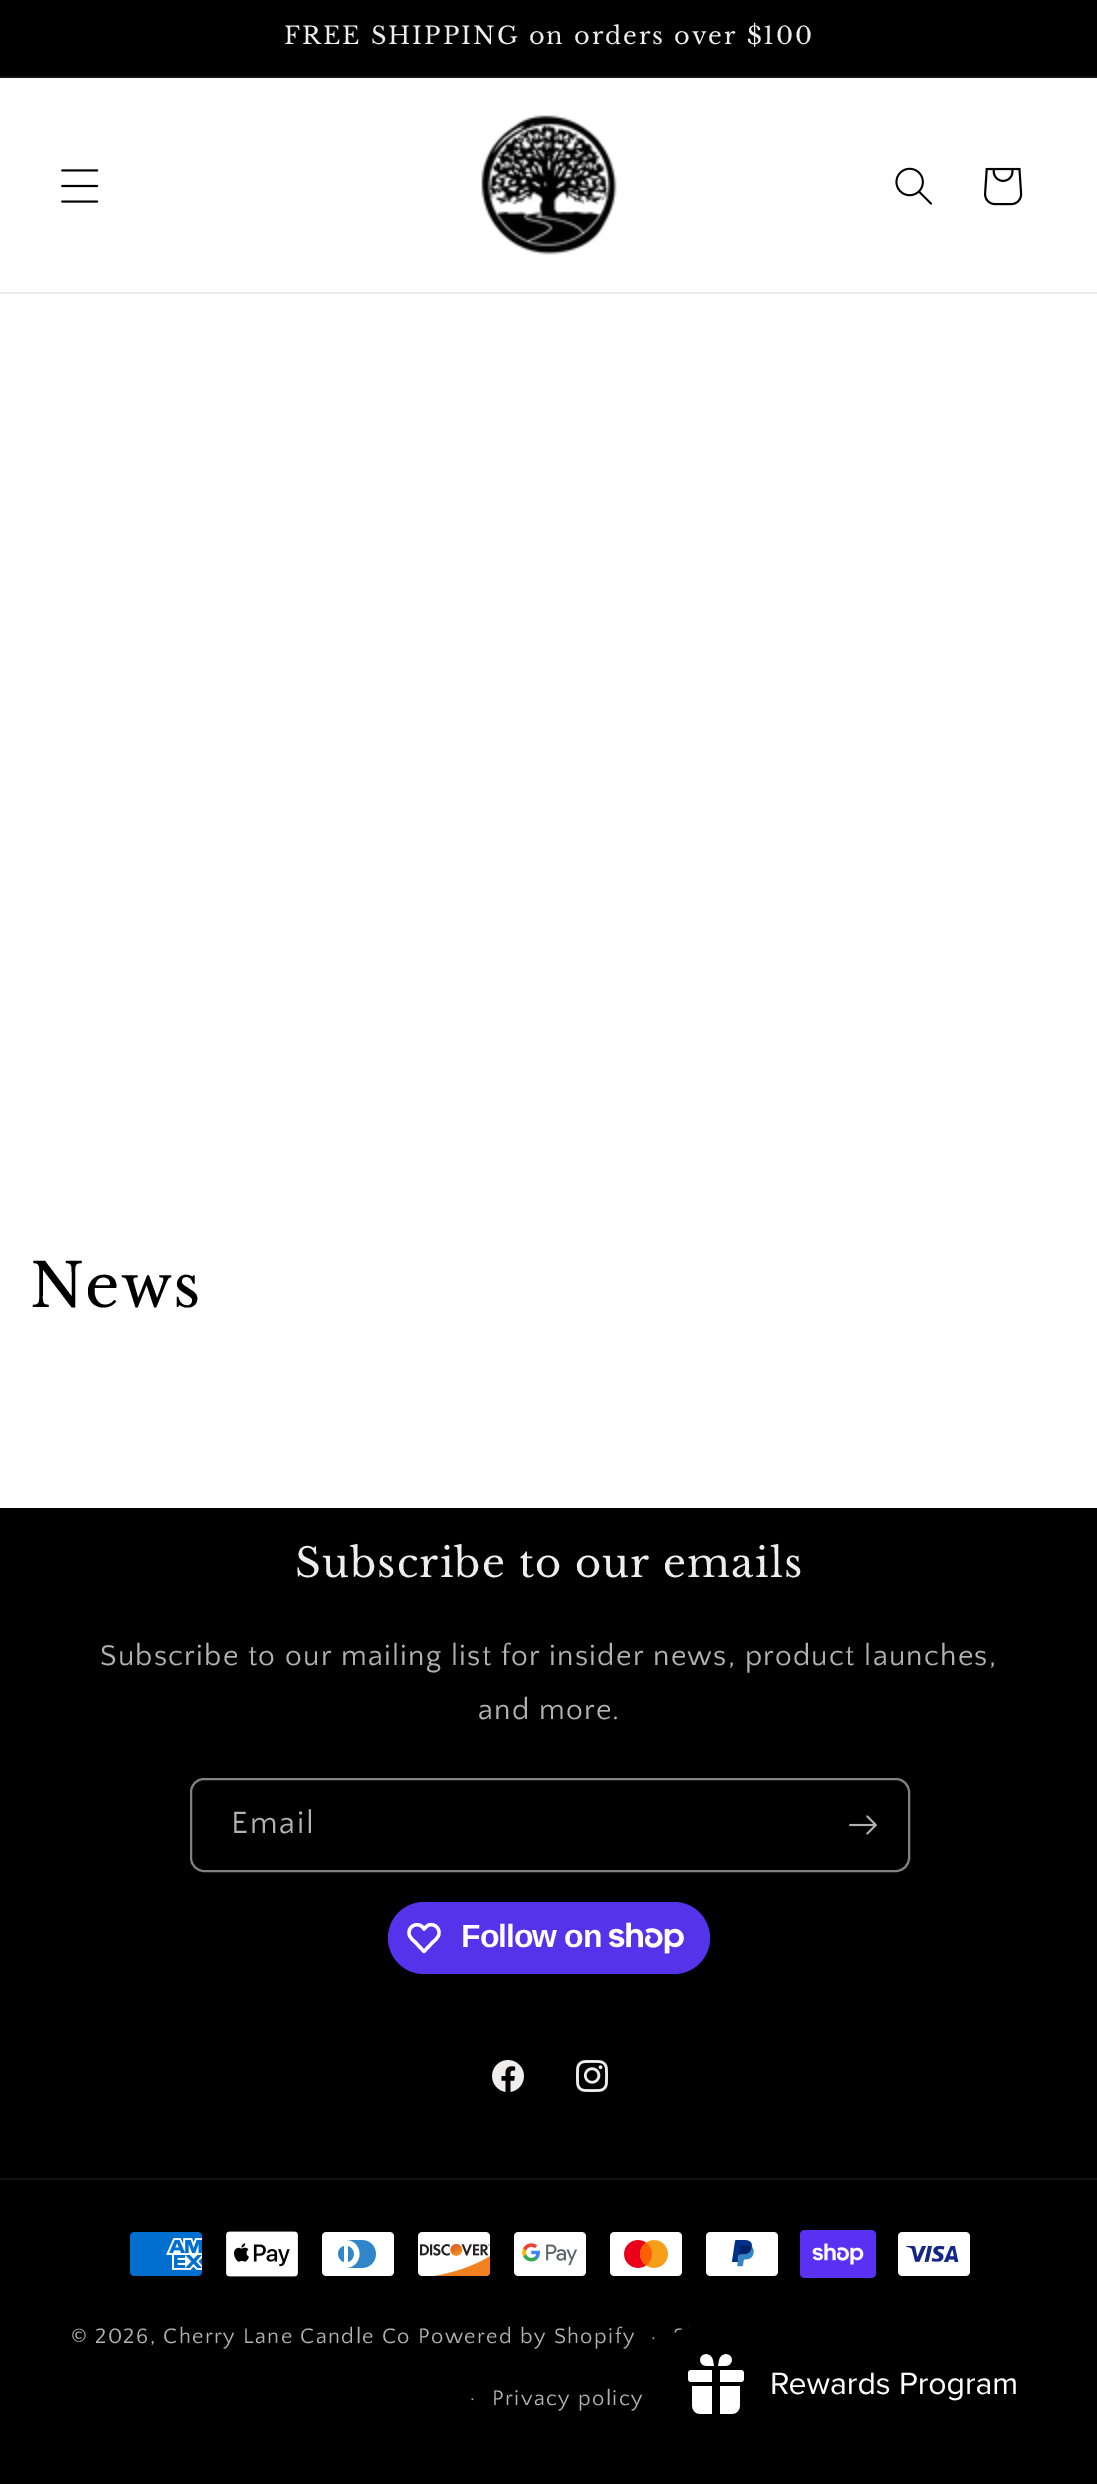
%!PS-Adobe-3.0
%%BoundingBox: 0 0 1097 2484
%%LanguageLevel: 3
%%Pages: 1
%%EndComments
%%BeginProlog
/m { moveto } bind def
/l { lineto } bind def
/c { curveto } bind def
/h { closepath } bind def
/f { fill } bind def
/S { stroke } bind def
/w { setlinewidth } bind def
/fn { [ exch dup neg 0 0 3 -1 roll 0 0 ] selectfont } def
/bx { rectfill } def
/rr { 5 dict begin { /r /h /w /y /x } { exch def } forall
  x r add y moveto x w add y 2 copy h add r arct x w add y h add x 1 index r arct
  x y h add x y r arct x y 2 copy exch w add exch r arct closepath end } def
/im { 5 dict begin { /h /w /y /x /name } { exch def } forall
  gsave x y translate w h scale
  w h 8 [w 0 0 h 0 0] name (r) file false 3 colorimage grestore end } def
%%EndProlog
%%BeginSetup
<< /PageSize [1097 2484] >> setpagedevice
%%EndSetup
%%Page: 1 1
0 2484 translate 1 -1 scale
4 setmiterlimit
1 setgray
0 0 1097 2484 bx
0 setgray
0 0 1097 76 bx
0.075 setgray
0 76 1097 2 bx
/LibreBaskerville-Regular 24 fn
0.937 0.925 0.925 setrgbcolor
284 44 m 2 0 (FREE SHIPPING on orders over $100) ashow
0.922 setgray
0 292 1097 2 bx
(image0.raw) 61 169 38 34 im
(image1.raw) 481 115 136 140 im
(image2.raw) 895 167 37 38 im
(image3.raw) 984 167 39 39 im
/LibreBaskerville-Regular 60 fn
0 setgray
30 1307 m 1.2 0 (News) ashow
0 1508 1097 976 bx
/LibreBaskerville-Regular 40 fn
0.937 0.925 0.925 setrgbcolor
295 1577 m 1.2 0 (Subscribe to our emails) ashow
/QuattrocentoSans-Regular 30 fn
0.702 0.694 0.694 setrgbcolor
100 1665 m 1.2 0 (Subscribe to our mailing list for insider news, product launches,) ashow
478 1719 m 1.2 0 (and more.) ashow
0.514 0.51 0.51 setrgbcolor
2 w
191 1779 718 92 13 rr S
/QuattrocentoSans-Regular 32 fn
0.702 0.694 0.694 setrgbcolor
231 1833 m 2 0 (Email) ashow
(image4.raw) 849 1815 28 20 im
0.329 0.2 0.922 setrgbcolor
388 1902 322 72 36 rr f
1 setgray
3.3 w
1 setlinejoin
422.5 1927 m 424 1929 l 425.5 1927.5 427 1925.5 429 1925 c 435 1923 441 1929.5 438.5 1935.5 c 437.5 1938.5 434.5 1940.5 432.5 1942.5 c 424 1951.5 l 415.5 1942.5 l 413.5 1940.5 410.5 1938.5 409.5 1935.5 c 406.5 1927.5 416.5 1921 422.5 1927 c h S
/LiberationSans-Bold 32 fn
461 1947 m -1 0 (Follow on) ashow
(image5.raw) 609 1922 75 32 im
(image6.raw) 492 2060 32 32 im
(image7.raw) 576 2060 32 32 im
0.075 setgray
0 2178 1097 2 bx
(image8.raw) 130 2232 72 44 im
(image9.raw) 226 2231 72 46 im
(image10.raw) 322 2232 72 44 im
(image11.raw) 418 2232 73 44 im
(image12.raw) 514 2232 72 44 im
(image13.raw) 610 2232 72 44 im
(image14.raw) 706 2232 72 44 im
(image15.raw) 800 2230 76 48 im
(image16.raw) 898 2232 72 44 im
/QuattrocentoSans-Regular 22 fn
0.702 0.694 0.694 setrgbcolor
71 2343 m 1.4 0 (© 2026, Cherry Lane Candle Co) ashow
418 2343 m 1.4 0 (Powered by Shopify) ashow
/QuattrocentoSans-Regular 20 fn
651 2343 m 1.4 0 (·) ashow
470 2404 m 1.4 0 (·) ashow
/QuattrocentoSans-Regular 22 fn
492 2405 m 1.4 0 (Privacy policy) ashow
(image17.raw) 674 2326 351 88 im
showpage
%%EOF
